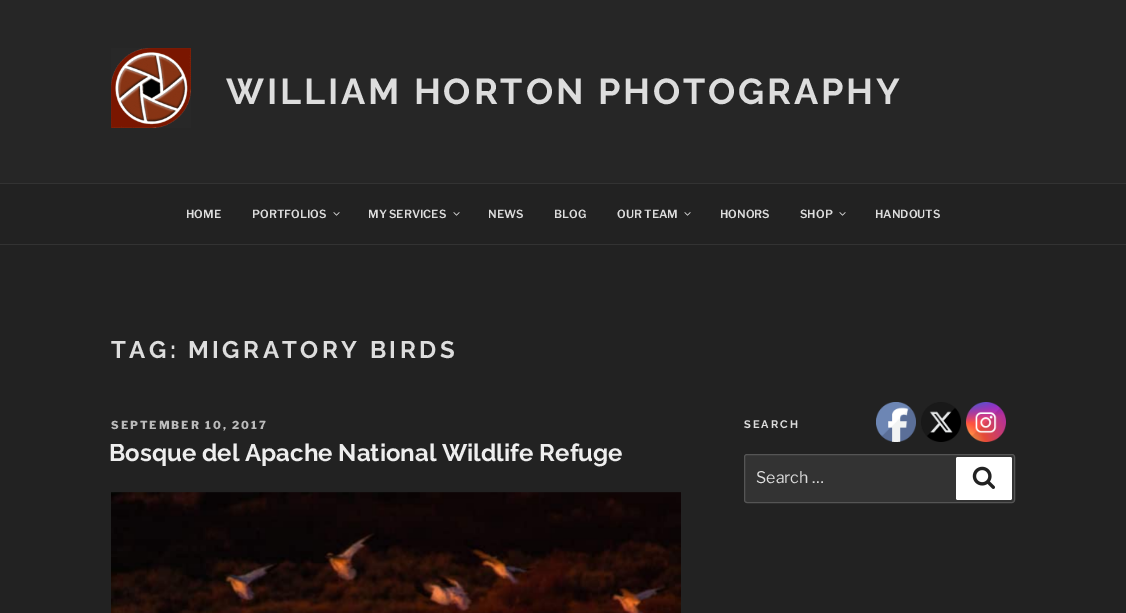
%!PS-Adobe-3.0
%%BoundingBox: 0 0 1126 613
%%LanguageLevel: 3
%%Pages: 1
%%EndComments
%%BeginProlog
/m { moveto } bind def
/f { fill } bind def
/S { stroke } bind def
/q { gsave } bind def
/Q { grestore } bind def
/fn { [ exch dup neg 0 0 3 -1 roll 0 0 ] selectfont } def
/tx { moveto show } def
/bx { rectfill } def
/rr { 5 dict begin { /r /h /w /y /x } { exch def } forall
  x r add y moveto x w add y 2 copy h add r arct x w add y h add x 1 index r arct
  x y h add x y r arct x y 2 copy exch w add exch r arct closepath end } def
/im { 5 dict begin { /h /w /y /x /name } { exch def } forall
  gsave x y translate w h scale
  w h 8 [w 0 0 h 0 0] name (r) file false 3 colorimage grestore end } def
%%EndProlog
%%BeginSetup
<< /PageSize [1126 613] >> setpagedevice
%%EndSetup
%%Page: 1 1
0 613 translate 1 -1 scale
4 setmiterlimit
0.133 setgray
0 0 1126 613 bx
0.149 setgray
0 0 1126 183 bx
(image0.raw) 111 48 80 80 im
/Raleway-Bold 36 fn
0.867 setgray
226 104 m 2.9 0 (WILLIAM HORTON PHOTOGRAPHY) ashow
0.2 setgray
0 183 1126 1 bx
0 244 1126 1 bx
/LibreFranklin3-Thin 11.25 fn
0.867 setgray
(HOME) 186 218 tx
(PORTFOLIOS) 252 218 tx
(image1.raw) 333 212 7 4 im
(MY SERVICES) 368 218 tx
(image1.raw) 453 212 7 4 im
(NEWS) 488 218 tx
(BLOG) 554 218 tx
(OUR TEAM) 617 218 tx
(image1.raw) 684 212 7 4 im
(HONORS) 720 218 tx
(SHOP) 800 218 tx
(image1.raw) 839 212 7 4 im
(HANDOUTS) 875 218 tx
/Raleway-Bold 24 fn
111 358 m 3.4 0 (TAG: MIGRATORY BIRDS) ashow
/LibreFranklin-Thin 11 fn
0.733 setgray
111 429 m 2 0 (SEPTEMBER 10, 2017) ashow
/Raleway-Bold 24 fn
0.933 setgray
(Bosque del Apache National Wildlife Refuge) 109 461 tx
(image2.raw) 111 492 570 121 im
/Raleway-Bold 11 fn
0.867 setgray
744 428 m 2 0 (SEARCH) ashow
0.2 setgray
744.5 454.5 270 48 2.5 rr q f Q
0.333 setgray
S
/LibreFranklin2-Thin 16 fn
0.867 setgray
(Search …) 756 483 tx
1 setgray
956 457 56 43 2 rr f
(image3.raw) 972 466 23 23 im
(image4.raw) 876 402 40 40 im
(image5.raw) 921 402 40 40 im
(image6.raw) 966 402 40 40 im
showpage
%%EOF
